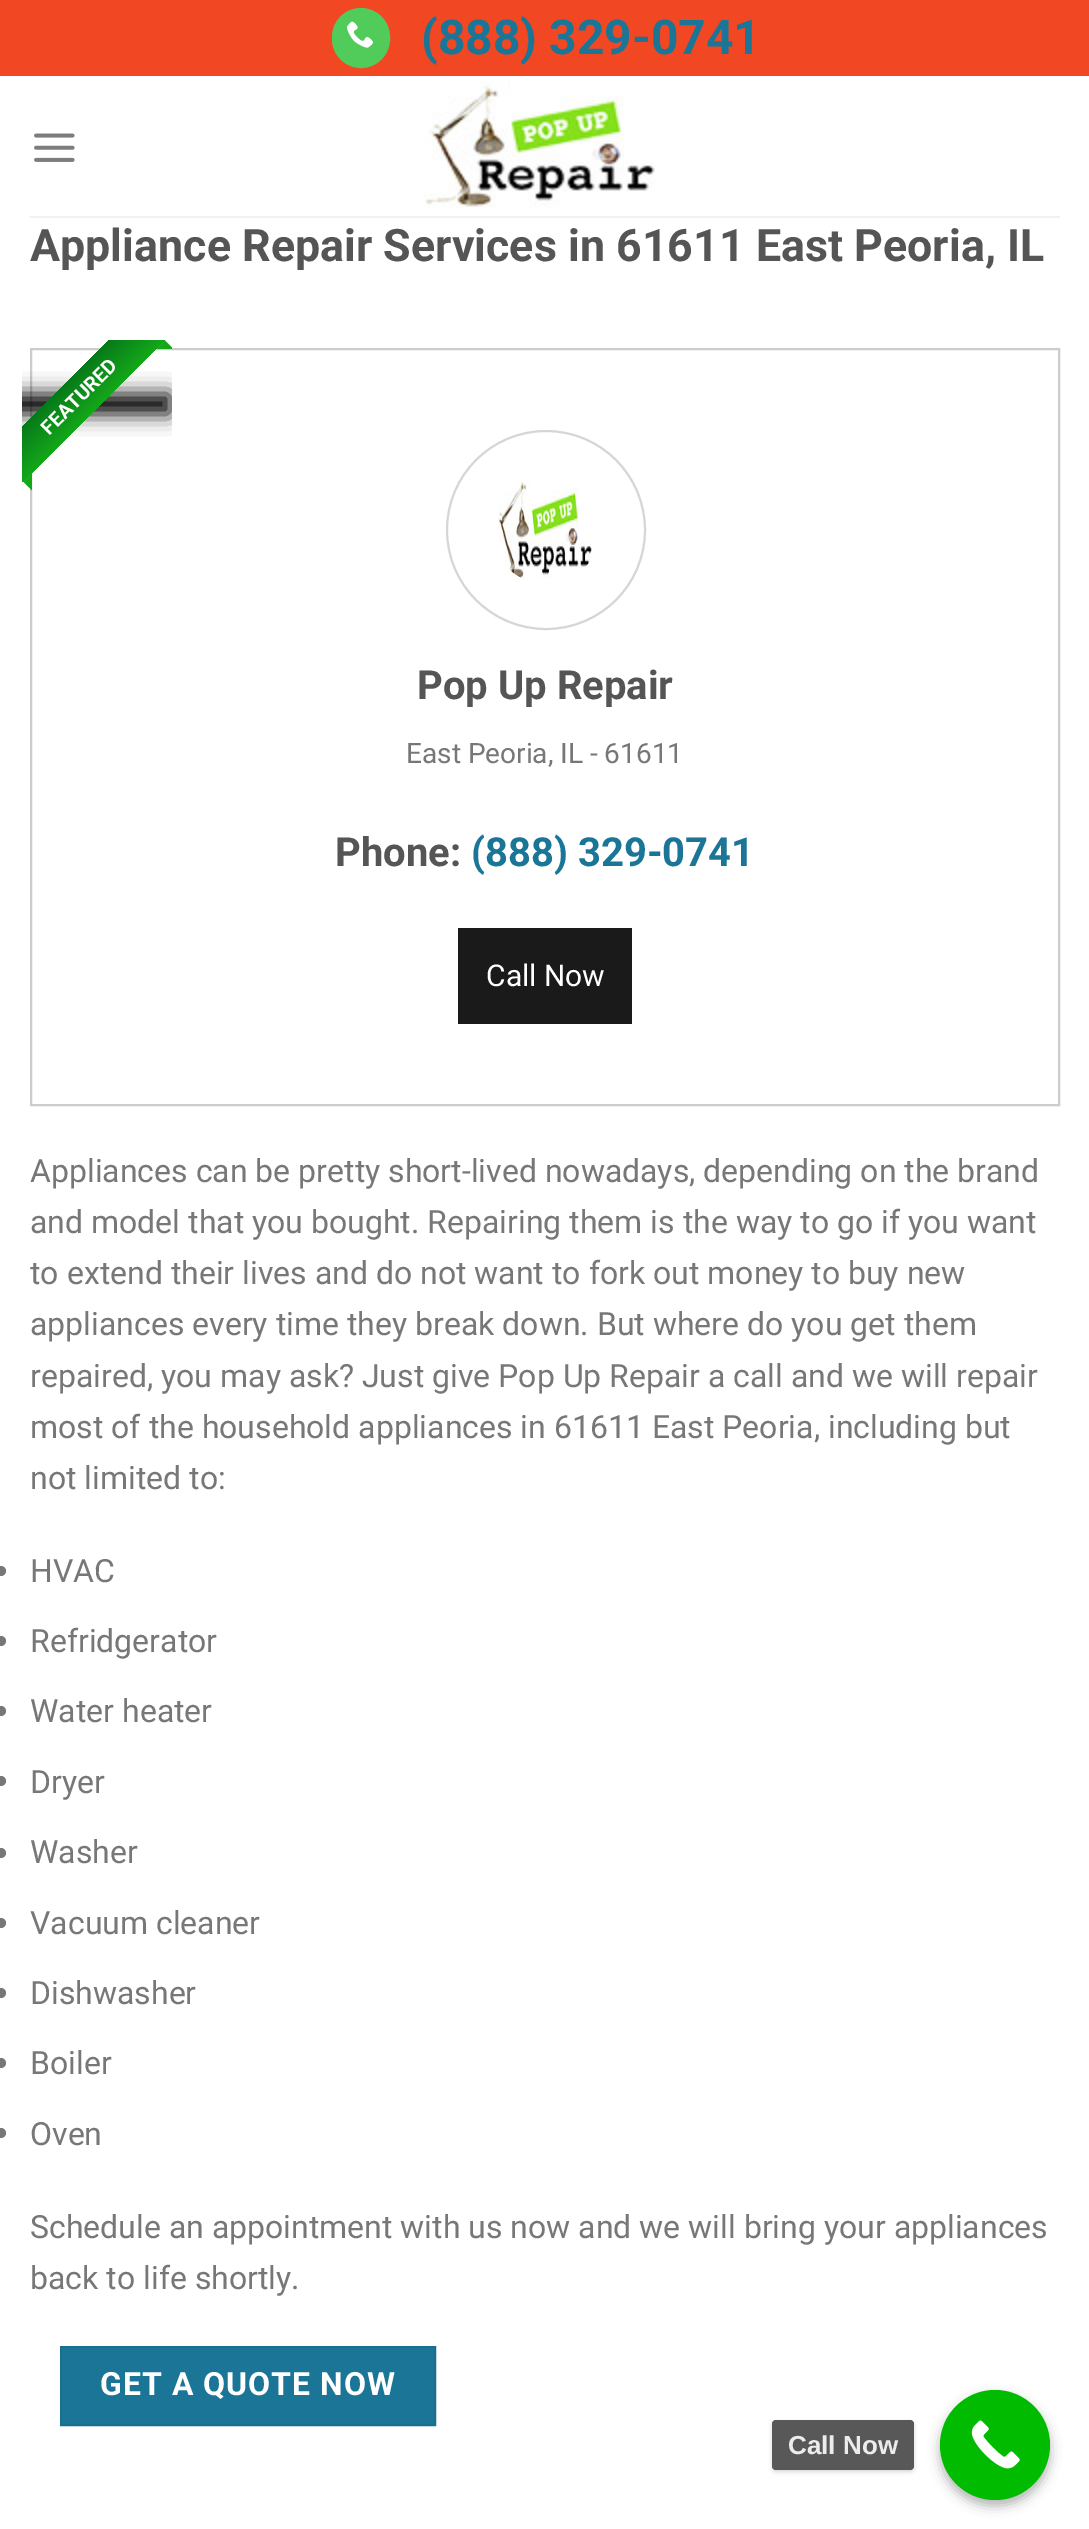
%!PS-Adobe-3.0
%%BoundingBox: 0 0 1089 2529
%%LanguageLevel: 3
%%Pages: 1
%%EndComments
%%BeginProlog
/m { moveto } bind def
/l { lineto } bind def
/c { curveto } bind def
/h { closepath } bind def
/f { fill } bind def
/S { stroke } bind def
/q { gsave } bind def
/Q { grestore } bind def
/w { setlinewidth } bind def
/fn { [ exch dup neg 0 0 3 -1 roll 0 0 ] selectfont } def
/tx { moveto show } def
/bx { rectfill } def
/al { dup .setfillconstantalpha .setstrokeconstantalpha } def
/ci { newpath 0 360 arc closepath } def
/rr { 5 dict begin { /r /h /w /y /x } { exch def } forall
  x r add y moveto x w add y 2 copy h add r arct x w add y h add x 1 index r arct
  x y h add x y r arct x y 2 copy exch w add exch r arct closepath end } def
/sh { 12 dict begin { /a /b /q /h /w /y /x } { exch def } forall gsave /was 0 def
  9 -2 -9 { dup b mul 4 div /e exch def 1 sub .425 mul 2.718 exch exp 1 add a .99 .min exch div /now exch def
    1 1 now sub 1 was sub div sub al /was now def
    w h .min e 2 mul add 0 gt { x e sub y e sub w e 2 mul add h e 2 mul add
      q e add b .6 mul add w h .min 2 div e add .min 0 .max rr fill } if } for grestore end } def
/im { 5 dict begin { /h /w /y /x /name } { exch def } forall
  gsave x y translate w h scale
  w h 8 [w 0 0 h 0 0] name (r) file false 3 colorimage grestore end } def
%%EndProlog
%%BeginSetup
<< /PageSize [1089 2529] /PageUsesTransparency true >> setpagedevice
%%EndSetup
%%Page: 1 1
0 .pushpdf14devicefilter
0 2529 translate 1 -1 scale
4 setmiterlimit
1 setgray
0 0 1089 2529 bx
0.945 0.278 0.137 setrgbcolor
0 0 1089 76 bx
0.318 0.796 0.353 setrgbcolor
333 9 56 58 28 rr q f Q
2 w
S
(image0.raw) 346 21 27 27 im
/Roboto-Bold 48 fn
0.106 0.459 0.592 setrgbcolor
(\(888\) 329-0741) 421 54 tx
(image1.raw) 34 133 41 29 im
(image2.raw) 423 80 232 128 im
0.945 setgray
30 216 1030 2 bx
/Roboto-Bold 44.8 fn
0.333 setgray
(Appliance Repair Services in 61611 East Peoria, IL) 30 261 tx
0.8 setgray
31 349 1028 756 rectstroke
q
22 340 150 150 rectclip
0 setgray
-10 394 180 20 0 10 1 sh
Q
q
22 340 150 150 rectclip
q -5 454 m 137 312 l 165 340 l 23 482 l h clip newpath
<< /ShadingType 2 /ColorSpace /DeviceRGB /Coords [66 383 94 411] /Extend [true true] /Function << /FunctionType 2 /Domain [0 1] /C0 [0.027 0.478 0.106] /C1 [0.078 0.655 0.098] /N 1 >> >> shfill Q
Q
0.078 0.655 0.098 setrgbcolor
156.5 349 m 165 340.5 l 165 349 l h f
q
22 340 150 150 rectclip
165 340.5 m 173.5 349 l 165 349 l h f
Q
/Roboto-Bold 20 fn
1 setgray
q 49 436 translate -45 rotate 0 0 m (FEATURED) show Q
0.078 0.655 0.098 setrgbcolor
23.5 482 m 32 473.5 l 32 482 l h 32 490.5 m 23.5 482 l 32 482 l h f
0.839 setgray
546 530 99 ci S
(image3.raw) 498 481 94 98 im
/Roboto-Bold 40 fn
0.333 setgray
(Pop Up Repair) 417 699 tx
/Roboto-Regular 28 fn
0.467 setgray
(East Peoria, IL - 61611) 406 763 tx
/Roboto-Bold 40 fn
0.333 setgray
(Phone:) 335 866 tx
0.106 0.459 0.592 setrgbcolor
(\(888\) 329-0741) 471 866 tx
0.102 setgray
458 928 174 96 bx
/Roboto-Regular 30 fn
1 setgray
(Call Now) 486 986 tx
/Roboto-Regular 32 fn
0.467 setgray
(Appliances can be pretty short-lived nowadays, depending on the brand) 30 1182 tx
(and model that you bought. Repairing them is the way to go if you want) 30 1233 tx
(to extend their lives and do not want to fork out money to buy new) 30 1284 tx
(appliances every time they break down. But where do you get them) 30 1335 tx
(repaired, you may ask? Just give Pop Up Repair a call and we will repair) 30 1387 tx
(most of the household appliances in 61611 East Peoria, including but) 30 1438 tx
(not limited to:) 30 1489 tx
1 1571 5 ci f
(HVAC) 30 1582 tx
1 1641 5 ci f
(Refridgerator) 30 1652 tx
1 1711 5 ci f
(Water heater) 30 1722 tx
1 1781 5 ci f
(Dryer) 30 1793 tx
1 1853 5 ci f
(Washer) 30 1863 tx
1 1923 5 ci f
(Vacuum cleaner) 30 1934 tx
1 1993 5 ci f
(Dishwasher) 30 2004 tx
1 2063 5 ci f
(Boiler) 30 2074 tx
1 2133 5 ci f
(Oven) 30 2145 tx
(Schedule an appointment with us now and we will bring your appliances) 30 2238 tx
(back to life shortly.) 30 2289 tx
0.106 0.459 0.592 setrgbcolor
61 2347 m 435 2347 l 435 2425 l 61 2425 l h q f Q
0.102 0.435 0.561 setrgbcolor
S
/Roboto-Bold 32 fn
1 setgray
100 2395 m 1 0 (GET A QUOTE NOW) ashow
0 setgray
940 2396 110 110 55 6 0.3 sh
0 0.733 0 setrgbcolor
995 2445 55 ci f
(image4.raw) 971 2420 49 49 im
q
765 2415 m 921 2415 l 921 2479 l 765 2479 l h 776 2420 m 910 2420 l 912 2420 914 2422 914 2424 c 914 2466 l 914 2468 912 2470 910 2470 c 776 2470 l 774 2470 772 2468 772 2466 c 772 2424 l 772 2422 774 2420 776 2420 c h eoclip newpath
0 setgray
772 2422 142 50 4 2 0.15 sh
Q
0.9 al
0.275 setgray
772 2420 142 50 4 rr f
/LiberationSans-Bold 26 fn
1 al
0.925 setgray
(Call Now) 788 2454 tx
.poppdf14devicefilter showpage
%%EOF
